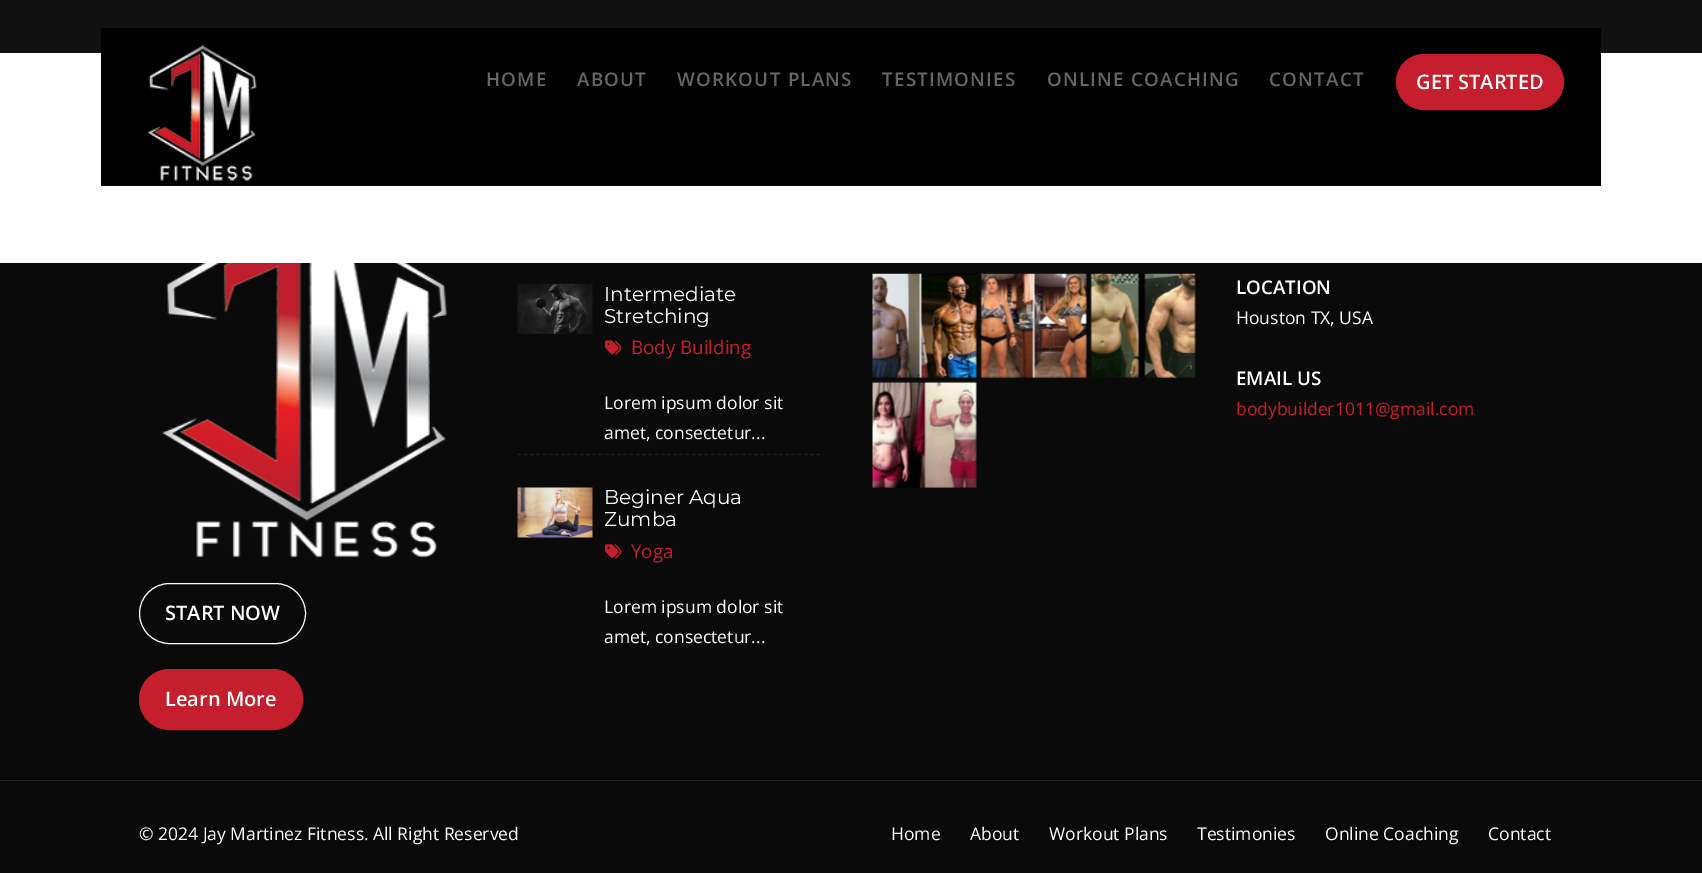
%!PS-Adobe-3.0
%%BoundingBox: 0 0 1702 873
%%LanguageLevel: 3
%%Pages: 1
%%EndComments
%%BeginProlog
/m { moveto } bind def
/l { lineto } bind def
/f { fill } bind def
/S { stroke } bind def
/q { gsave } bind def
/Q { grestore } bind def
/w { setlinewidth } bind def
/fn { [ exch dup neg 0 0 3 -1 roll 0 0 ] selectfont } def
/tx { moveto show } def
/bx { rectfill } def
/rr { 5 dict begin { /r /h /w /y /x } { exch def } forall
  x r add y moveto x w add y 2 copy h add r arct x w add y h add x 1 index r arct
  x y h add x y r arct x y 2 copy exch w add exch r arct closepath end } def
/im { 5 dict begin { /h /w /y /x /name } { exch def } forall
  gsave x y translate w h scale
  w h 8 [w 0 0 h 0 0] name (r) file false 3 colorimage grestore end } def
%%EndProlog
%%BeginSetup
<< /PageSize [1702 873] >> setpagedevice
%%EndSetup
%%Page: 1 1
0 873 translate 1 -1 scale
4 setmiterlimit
0.039 setgray
0 0 1702 873 bx
1 setgray
0 53 1702 210 bx
0.067 setgray
0 0 1702 53 bx
0 setgray
101 28 1500 158 bx
(image0.raw) 147 44 110 137 im
/OpenSans-SemiBold 18.75 fn
0.4 setgray
486 86 m 1.25 0 (HOME) ashow
577 86 m 1.25 0 (ABOUT) ashow
677 86 m 1.25 0 (WORKOUT PLANS) ashow
882 86 m 1.25 0 (TESTIMONIES) ashow
1047 86 m 1.25 0 (ONLINE COACHING) ashow
1269 86 m 1.25 0 (CONTACT) ashow
0.773 0.118 0.173 setrgbcolor
1396.5 54.5 167 55 27.5 rr q f Q
S
/OpenSans-SemiBold 20 fn
1 setgray
(GET STARTED) 1416 89 tx
(image1.raw) 161 263 286 295 im
139.5 583.5 166 60 30 rr S
(START NOW) 165 620 tx
0.773 0.118 0.173 setrgbcolor
139.5 669.5 163 60 30 rr q f Q
S
1 setgray
(Learn More) 165 706 tx
0.125 0.125 0.122 setrgbcolor
1.2 w
[3.75 2.48] 0 setdash
517.5 454.5 m 820 454.5 l S
(image2.raw) 517 283 76 51 im
/Montserrat-Regular 20 fn
1 setgray
(Intermediate) 604 301 tx
(Stretching) 604 323 tx
(image3.raw) 605 340 17 15 im
/OpenSans-Regular 18.75 fn
0.773 0.118 0.173 setrgbcolor
(Body Building) 631 354 tx
/OpenSans-Regular 17.5 fn
1 setgray
(Lorem ipsum dolor sit) 604 409 tx
(amet, consectetur...) 604 439 tx
(image4.raw) 517 487 76 51 im
/Montserrat-Regular 20 fn
(Beginer Aqua) 604 504 tx
(Zumba) 604 526 tx
(image5.raw) 605 544 17 15 im
/OpenSans-Regular 18.75 fn
0.773 0.118 0.173 setrgbcolor
(Yoga) 631 558 tx
/OpenSans-Regular 17.5 fn
1 setgray
(Lorem ipsum dolor sit) 604 613 tx
(amet, consectetur...) 604 643 tx
(image6.raw) 872 273 105 105 im
(image7.raw) 980 273 107 105 im
(image8.raw) 1090 273 106 105 im
(image9.raw) 872 381 105 107 im
/OpenSans-SemiBold 18.75 fn
(LOCATION) 1236 294 tx
/OpenSans-Regular 17.5 fn
(Houston TX, USA) 1236 324 tx
/OpenSans-SemiBold 18.75 fn
(EMAIL US) 1236 385 tx
/OpenSans-Regular 17.5 fn
0.773 0.118 0.173 setrgbcolor
(bodybuilder1011@gmail.com) 1236 415 tx
0.129 0.129 0.125 setrgbcolor
0 780 1702 1 bx
1 setgray
(© 2024 Jay Martinez Fitness. All Right Reserved) 139 840 tx
(Home) 891 840 tx
(About) 970 840 tx
(Workout Plans) 1049 840 tx
(Testimonies) 1197 840 tx
(Online Coaching) 1325 840 tx
(Contact) 1488 840 tx
showpage
%%EOF
